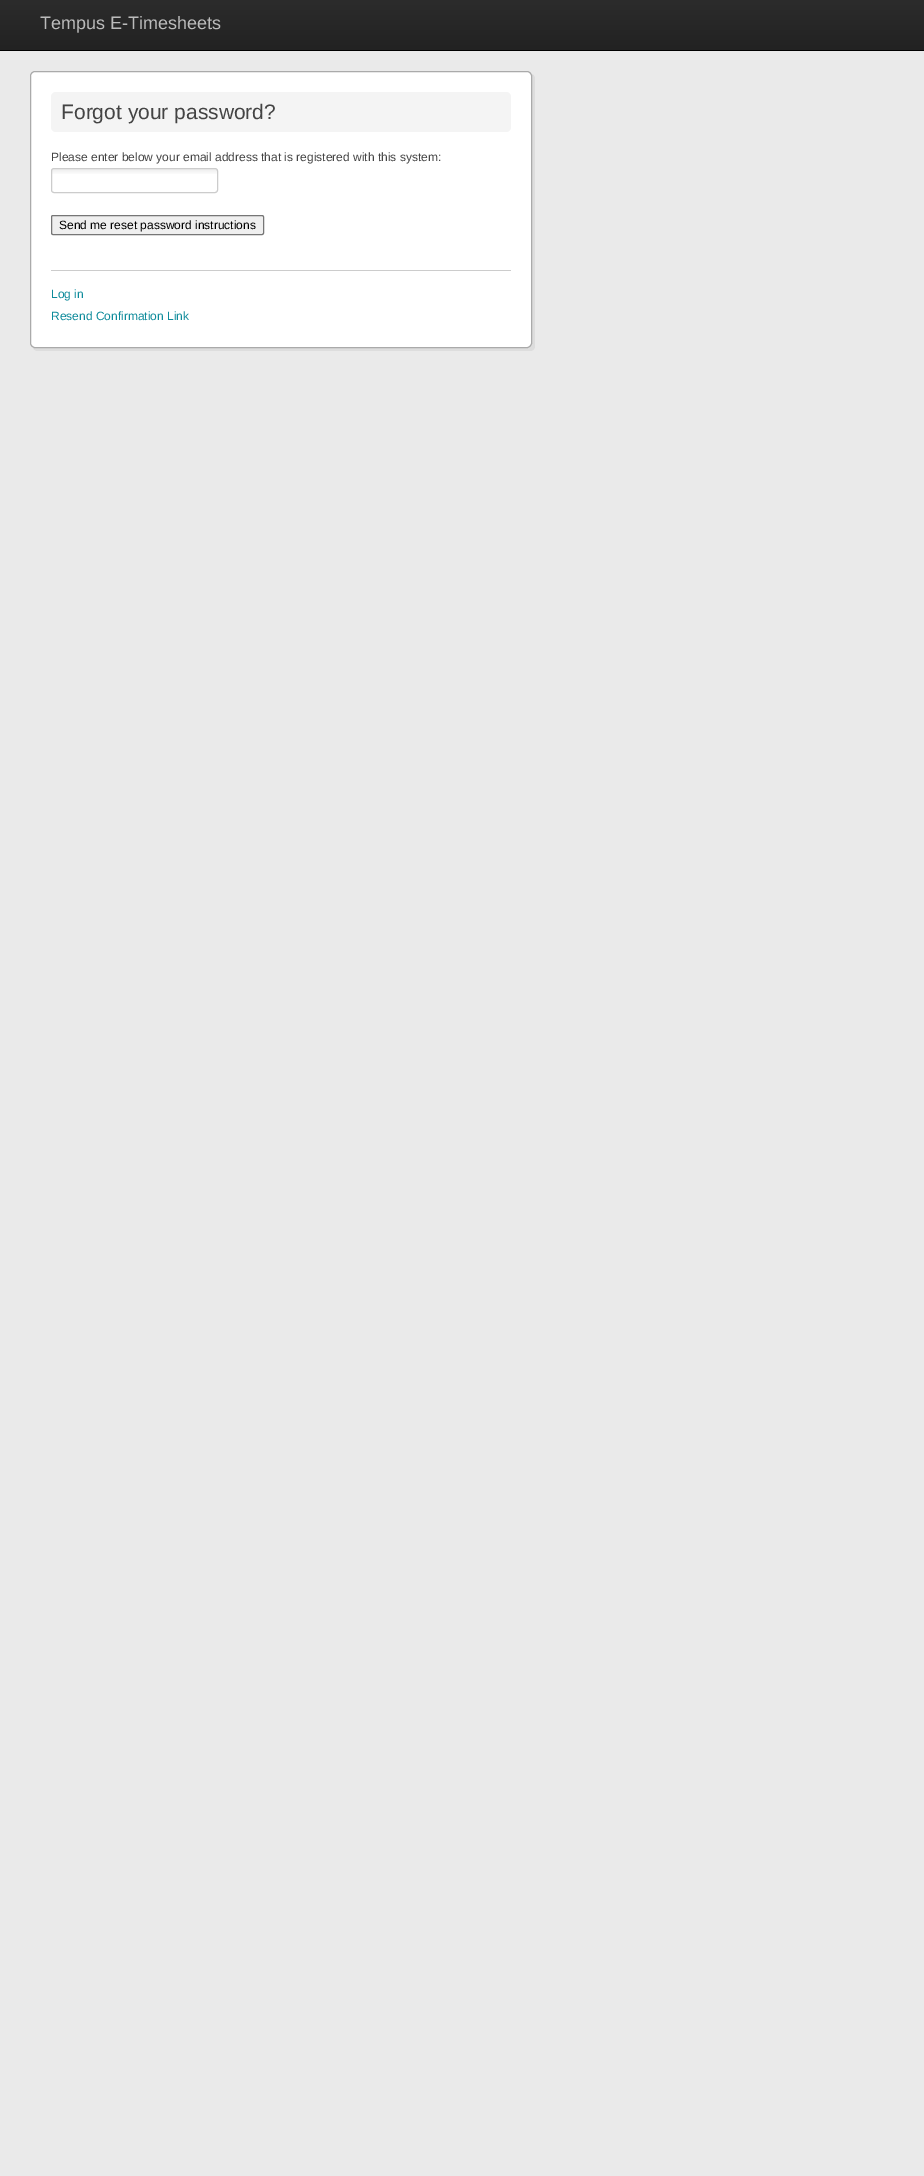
%!PS-Adobe-3.0
%%BoundingBox: 0 0 924 2176
%%LanguageLevel: 3
%%Pages: 1
%%EndComments
%%BeginProlog
/m { moveto } bind def
/l { lineto } bind def
/c { curveto } bind def
/h { closepath } bind def
/f { fill } bind def
/S { stroke } bind def
/q { gsave } bind def
/Q { grestore } bind def
/fn { [ exch dup neg 0 0 3 -1 roll 0 0 ] selectfont } def
/tx { moveto show } def
/bx { rectfill } def
/rr { 5 dict begin { /r /h /w /y /x } { exch def } forall
  x r add y moveto x w add y 2 copy h add r arct x w add y h add x 1 index r arct
  x y h add x y r arct x y 2 copy exch w add exch r arct closepath end } def
/im { 5 dict begin { /h /w /y /x /name } { exch def } forall
  gsave x y translate w h scale
  w h 8 [w 0 0 h 0 0] name (r) file false 3 colorimage grestore end } def
%%EndProlog
%%BeginSetup
<< /PageSize [924 2176] >> setpagedevice
%%EndSetup
%%Page: 1 1
0 2176 translate 1 -1 scale
4 setmiterlimit
0.918 setgray
0 0 924 2176 bx
q 0 0 m 924 0 l 924 50 l 0 50 l h clip newpath
<< /ShadingType 2 /ColorSpace /DeviceRGB /Coords [480 0 480 50] /Extend [true true] /Function << /FunctionType 2 /Domain [0 1] /C0 [0.173 0.173 0.173] /C1 [0.133 0.133 0.133] /N 1 >> >> shfill Q
0 setgray
0 50 924 1 bx
/LiberationSans-Regular 18 fn
0.733 setgray
(Tempus E-Timesheets) 40 29 tx
0.867 setgray
33 348 m 34 350 36 351 38 351 c 530 351 l 533 351 535 349 535 346 c 535 79 l 535 77 534 75 532 74 c 532 343 l 532 346 530 348 527 348 c h f
1 setgray
30.5 71.5 501 276 4.5 rr q f Q
0.667 setgray
S
0.957 setgray
51 92 460 40 5 rr f
/LiberationSans-Regular 21 fn
0.267 setgray
(Forgot your password?) 61 119 tx
/LiberationSans-Regular 12 fn
(Please enter below your email address that is registered with this system:) 51 161 tx
(image0.raw) 51 169 167 5 im
0.8 setgray
51.5 168.5 166 24 2.5 rr S
0.937 setgray
51.5 215.5 212 19 1.5 rr q f Q
0.463 setgray
S
0 setgray
(Send me reset password instructions) 59 229 tx
0.8 setgray
51 270 460 1 bx
0.051 0.545 0.608 setrgbcolor
(Log in) 51 298 tx
(Resend Confirmation Link) 51 320 tx
showpage
%%EOF
